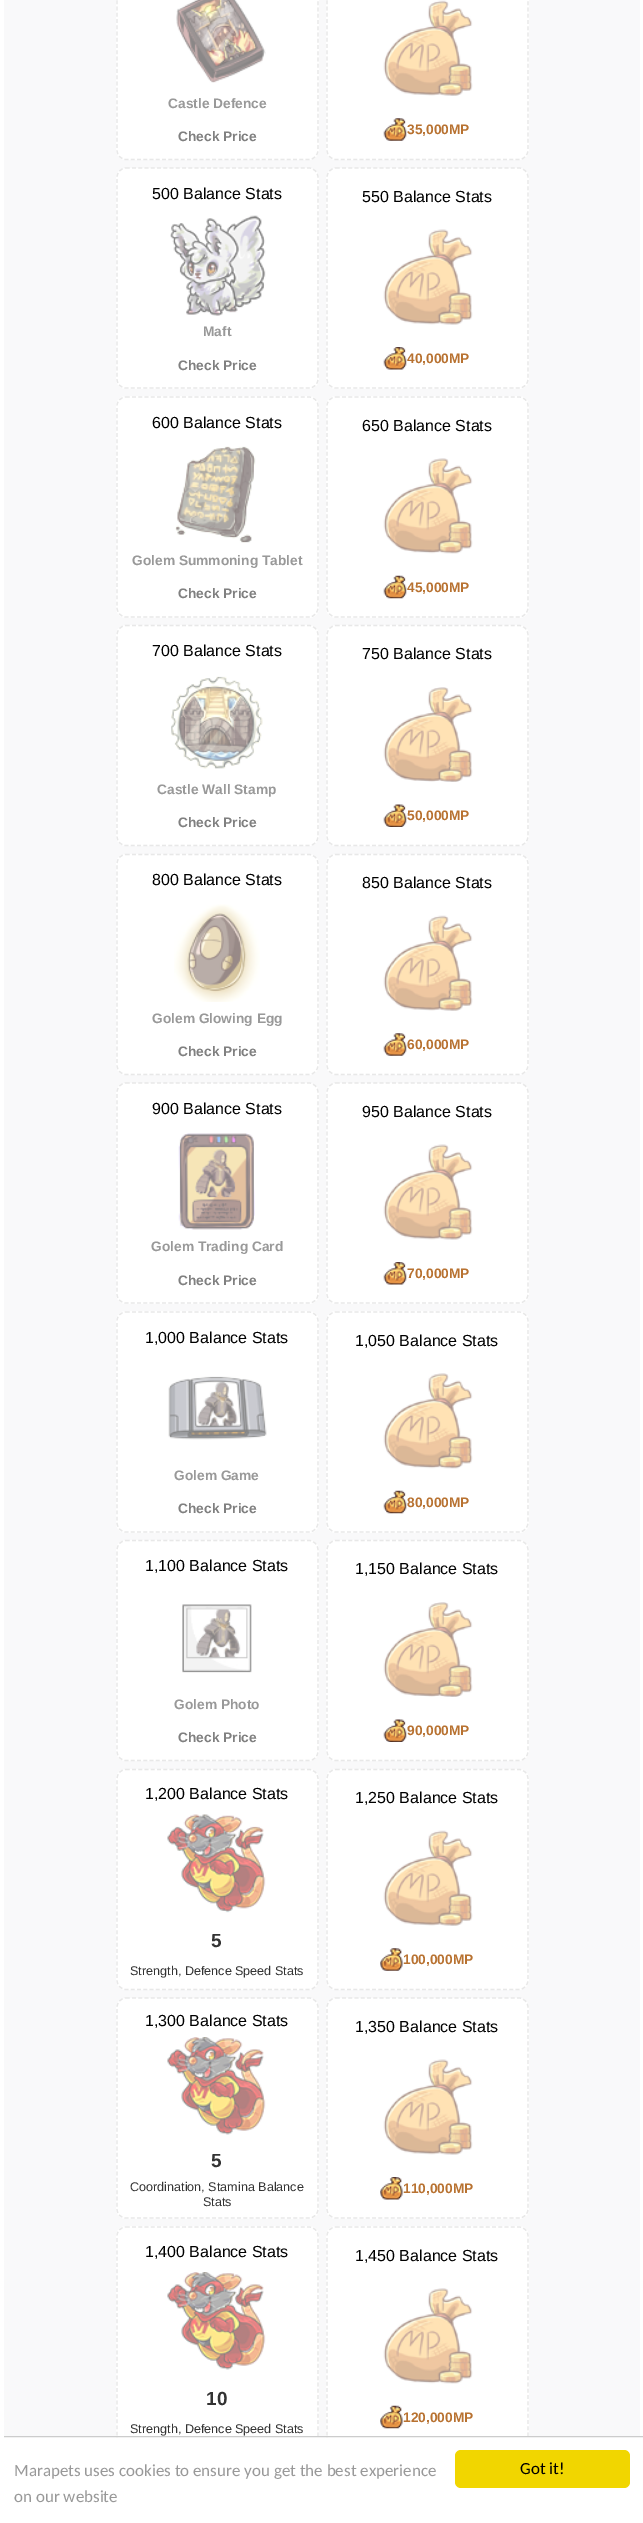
%!PS-Adobe-3.0
%%BoundingBox: 0 0 643 2523
%%LanguageLevel: 3
%%Pages: 1
%%EndComments
%%BeginProlog
/m { moveto } bind def
/l { lineto } bind def
/c { curveto } bind def
/h { closepath } bind def
/f { fill } bind def
/S { stroke } bind def
/w { setlinewidth } bind def
/fn { [ exch dup neg 0 0 3 -1 roll 0 0 ] selectfont } def
/tx { moveto show } def
/bx { rectfill } def
/rr { 5 dict begin { /r /h /w /y /x } { exch def } forall
  x r add y moveto x w add y 2 copy h add r arct x w add y h add x 1 index r arct
  x y h add x y r arct x y 2 copy exch w add exch r arct closepath end } def
/im { 5 dict begin { /h /w /y /x /name } { exch def } forall
  gsave x y translate w h scale
  w h 8 [w 0 0 h 0 0] name (r) file false 3 colorimage grestore end } def
%%EndProlog
%%BeginSetup
<< /PageSize [643 2523] >> setpagedevice
%%EndSetup
%%Page: 1 1
0 2523 translate 1 -1 scale
4 setmiterlimit
1 setgray
0 0 643 2523 bx
0.976 0.976 0.98 setrgbcolor
4 0 636 2436 bx
1 setgray
116 -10 203 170 10 rr f
0.91 setgray
1.2 w
[3.75 2.5] 0 setdash
126 -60.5 m 309 -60.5 l 314 -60.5 318 -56.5 318 -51 c 318 150 l 318 155 314 159.5 309 159.5 c 126 159.5 l 121 159.5 117 155 117 150 c 117 -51 l 117 -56.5 121 -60.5 126 -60.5 c h S
(image0.raw) 176 0 90 83 im
/LiberationSans-Bold 13.75 fn
0.6 setgray
(Castle Defence) 168 108 tx
0.502 setgray
(Check Price) 178 141 tx
1 setgray
326 -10 203 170 10 rr f
0.91 setgray
336 -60.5 m 519 -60.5 l 524 -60.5 528 -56.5 528 -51 c 528 150 l 528 155 524 159.5 519 159.5 c 336 159.5 l 331 159.5 327 155 327 150 c 327 -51 l 327 -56.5 331 -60.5 336 -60.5 c h S
(image1.raw) 383 0 90 96 im
(image2.raw) 383 118 24 23 im
0.722 0.447 0.192 setrgbcolor
(35,000MP) 407 134 tx
1 setgray
116 168 203 221 10 rr f
0.91 setgray
126 168 m 309 168 l 314 168 318 172.5 318 177.5 c 318 379 l 318 384 314 388 309 388 c 126 388 l 121 388 117 384 117 379 c 117 177.5 l 117 172.5 121 168 126 168 c h S
/LiberationSans-Regular 16 fn
0 setgray
(500 Balance Stats) 152 199 tx
(image3.raw) 170 215 96 101 im
/LiberationSans-Bold 13.75 fn
0.6 setgray
(Maft) 203 336 tx
0.502 setgray
(Check Price) 178 370 tx
1 setgray
326 168 203 221 10 rr f
0.91 setgray
336 168 m 519 168 l 524 168 528 172.5 528 177.5 c 528 379 l 528 384 524 388 519 388 c 336 388 l 331 388 327 384 327 379 c 327 177.5 l 327 172.5 331 168 336 168 c h S
/LiberationSans-Regular 16 fn
0 setgray
(550 Balance Stats) 362 202 tx
(image4.raw) 383 229 90 96 im
(image5.raw) 383 347 24 23 im
/LiberationSans-Bold 13.75 fn
0.722 0.447 0.192 setrgbcolor
(40,000MP) 407 363 tx
1 setgray
116 396 203 222 10 rr f
0.91 setgray
126 397 m 309 397 l 314 397 318 401 318 406 c 318 607.5 l 318 612.5 314 617 309 617 c 126 617 l 121 617 117 612.5 117 607.5 c 117 406 l 117 401 121 397 126 397 c h S
/LiberationSans-Regular 16 fn
0 setgray
(600 Balance Stats) 152 428 tx
(image6.raw) 175 446 81 97 im
/LiberationSans-Bold 13.75 fn
0.6 setgray
(Golem Summoning Tablet) 132 565 tx
0.502 setgray
(Check Price) 178 598 tx
1 setgray
326 396 203 222 10 rr f
0.91 setgray
336 397 m 519 397 l 524 397 528 401 528 406 c 528 607.5 l 528 612.5 524 617 519 617 c 336 617 l 331 617 327 612.5 327 607.5 c 327 406 l 327 401 331 397 336 397 c h S
/LiberationSans-Regular 16 fn
0 setgray
(650 Balance Stats) 362 431 tx
(image7.raw) 383 458 90 96 im
(image8.raw) 383 575 24 24 im
/LiberationSans-Bold 13.75 fn
0.722 0.447 0.192 setrgbcolor
(45,000MP) 407 592 tx
1 setgray
116 625 203 221 10 rr f
0.91 setgray
126 625.5 m 309 625.5 l 314 625.5 318 630 318 635 c 318 836 l 318 841.5 314 845.5 309 845.5 c 126 845.5 l 121 845.5 117 841.5 117 836 c 117 635 l 117 630 121 625.5 126 625.5 c h S
/LiberationSans-Regular 16 fn
0 setgray
(700 Balance Stats) 152 656 tx
(image9.raw) 171 676 92 93 im
/LiberationSans-Bold 13.75 fn
0.6 setgray
(Castle Wall Stamp) 157 794 tx
0.502 setgray
(Check Price) 178 827 tx
1 setgray
326 625 203 221 10 rr f
0.91 setgray
336 625.5 m 519 625.5 l 524 625.5 528 630 528 635 c 528 836 l 528 841.5 524 845.5 519 845.5 c 336 845.5 l 331 845.5 327 841.5 327 836 c 327 635 l 327 630 331 625.5 336 625.5 c h S
/LiberationSans-Regular 16 fn
0 setgray
(750 Balance Stats) 362 659 tx
(image10.raw) 383 687 90 95 im
(image11.raw) 383 804 24 23 im
/LiberationSans-Bold 13.75 fn
0.722 0.447 0.192 setrgbcolor
(50,000MP) 407 820 tx
1 setgray
116 854 203 221 10 rr f
0.91 setgray
126 854.5 m 309 854.5 l 314 854.5 318 858.5 318 864 c 318 1065 l 318 1070 314 1074.5 309 1074.5 c 126 1074.5 l 121 1074.5 117 1070 117 1065 c 117 864 l 117 858.5 121 854.5 126 854.5 c h S
/LiberationSans-Regular 16 fn
0 setgray
(800 Balance Stats) 152 885 tx
(image12.raw) 174 904 86 98 im
/LiberationSans-Bold 13.75 fn
0.6 setgray
(Golem Glowing Egg) 152 1023 tx
0.502 setgray
(Check Price) 178 1056 tx
1 setgray
326 854 203 221 10 rr f
0.91 setgray
336 854.5 m 519 854.5 l 524 854.5 528 858.5 528 864 c 528 1065 l 528 1070 524 1074.5 519 1074.5 c 336 1074.5 l 331 1074.5 327 1070 327 1065 c 327 864 l 327 858.5 331 854.5 336 854.5 c h S
/LiberationSans-Regular 16 fn
0 setgray
(850 Balance Stats) 362 888 tx
(image1.raw) 383 915 90 96 im
(image2.raw) 383 1033 24 23 im
/LiberationSans-Bold 13.75 fn
0.722 0.447 0.192 setrgbcolor
(60,000MP) 407 1049 tx
1 setgray
116 1083 203 221 10 rr f
0.91 setgray
126 1083 m 309 1083 l 314 1083 318 1087.5 318 1092.5 c 318 1294 l 318 1299 314 1303 309 1303 c 126 1303 l 121 1303 117 1299 117 1294 c 117 1092.5 l 117 1087.5 121 1083 126 1083 c h S
/LiberationSans-Regular 16 fn
0 setgray
(900 Balance Stats) 152 1114 tx
(image13.raw) 178 1133 77 97 im
/LiberationSans-Bold 13.75 fn
0.6 setgray
(Golem Trading Card) 151 1251 tx
0.502 setgray
(Check Price) 178 1285 tx
1 setgray
326 1083 203 221 10 rr f
0.91 setgray
336 1083 m 519 1083 l 524 1083 528 1087.5 528 1092.5 c 528 1294 l 528 1299 524 1303 519 1303 c 336 1303 l 331 1303 327 1299 327 1294 c 327 1092.5 l 327 1087.5 331 1083 336 1083 c h S
/LiberationSans-Regular 16 fn
0 setgray
(950 Balance Stats) 362 1117 tx
(image4.raw) 383 1144 90 96 im
(image5.raw) 383 1262 24 23 im
/LiberationSans-Bold 13.75 fn
0.722 0.447 0.192 setrgbcolor
(70,000MP) 407 1278 tx
1 setgray
116 1311 203 222 10 rr f
0.91 setgray
126 1312 m 309 1312 l 314 1312 318 1316 318 1321 c 318 1522.5 l 318 1527.5 314 1532 309 1532 c 126 1532 l 121 1532 117 1527.5 117 1522.5 c 117 1321 l 117 1316 121 1312 126 1312 c h S
/LiberationSans-Regular 16 fn
0 setgray
(1,000 Balance Stats) 145 1343 tx
(image14.raw) 168 1376 99 64 im
/LiberationSans-Bold 13.75 fn
0.6 setgray
(Golem Game) 174 1480 tx
0.502 setgray
(Check Price) 178 1513 tx
1 setgray
326 1311 203 222 10 rr f
0.91 setgray
336 1312 m 519 1312 l 524 1312 528 1316 528 1321 c 528 1522.5 l 528 1527.5 524 1532 519 1532 c 336 1532 l 331 1532 327 1527.5 327 1522.5 c 327 1321 l 327 1316 331 1312 336 1312 c h S
/LiberationSans-Regular 16 fn
0 setgray
(1,050 Balance Stats) 355 1346 tx
(image15.raw) 383 1373 90 96 im
(image8.raw) 383 1490 24 24 im
/LiberationSans-Bold 13.75 fn
0.722 0.447 0.192 setrgbcolor
(80,000MP) 407 1507 tx
1 setgray
116 1540 203 221 10 rr f
0.91 setgray
126 1540.5 m 309 1540.5 l 314 1540.5 318 1545 318 1550 c 318 1751 l 318 1756.5 314 1760.5 309 1760.5 c 126 1760.5 l 121 1760.5 117 1756.5 117 1751 c 117 1550 l 117 1545 121 1540.5 126 1540.5 c h S
/LiberationSans-Regular 16 fn
0 setgray
(1,100 Balance Stats) 145 1571 tx
(image16.raw) 182 1604 70 69 im
/LiberationSans-Bold 13.75 fn
0.6 setgray
(Golem Photo) 174 1709 tx
0.502 setgray
(Check Price) 178 1742 tx
1 setgray
326 1540 203 221 10 rr f
0.91 setgray
336 1540.5 m 519 1540.5 l 524 1540.5 528 1545 528 1550 c 528 1751 l 528 1756.5 524 1760.5 519 1760.5 c 336 1760.5 l 331 1760.5 327 1756.5 327 1751 c 327 1550 l 327 1545 331 1540.5 336 1540.5 c h S
/LiberationSans-Regular 16 fn
0 setgray
(1,150 Balance Stats) 355 1574 tx
(image17.raw) 383 1602 90 95 im
(image11.raw) 383 1719 24 23 im
/LiberationSans-Bold 13.75 fn
0.722 0.447 0.192 setrgbcolor
(90,000MP) 407 1735 tx
1 setgray
116 1769 203 221 10 rr f
0.91 setgray
126 1769.5 m 309 1769.5 l 314 1769.5 318 1773.5 318 1779 c 318 1980 l 318 1985 314 1989.5 309 1989.5 c 126 1989.5 l 121 1989.5 117 1985 117 1980 c 117 1779 l 117 1773.5 121 1769.5 126 1769.5 c h S
/LiberationSans-Regular 16 fn
0 setgray
(1,200 Balance Stats) 145 1799 tx
(image18.raw) 167 1814 99 99 im
/LiberationSans-Bold 19 fn
0.2 setgray
(5) 211 1947 tx
/LiberationSans-Regular 12.6 fn
(Strength, Defence Speed Stats) 130 1975 tx
1 setgray
326 1769 203 221 10 rr f
0.91 setgray
336 1769.5 m 519 1769.5 l 524 1769.5 528 1773.5 528 1779 c 528 1980 l 528 1985 524 1989.5 519 1989.5 c 336 1989.5 l 331 1989.5 327 1985 327 1980 c 327 1779 l 327 1773.5 331 1769.5 336 1769.5 c h S
/LiberationSans-Regular 16 fn
0 setgray
(1,250 Balance Stats) 355 1803 tx
(image1.raw) 383 1830 90 96 im
(image19.raw) 380 1948 23 23 im
/LiberationSans-Bold 13.75 fn
0.722 0.447 0.192 setrgbcolor
(100,000MP) 403 1964 tx
1 setgray
116 1998 203 221 10 rr f
0.91 setgray
126 1998 m 309 1998 l 314 1998 318 2002.5 318 2007.5 c 318 2209 l 318 2214 314 2218 309 2218 c 126 2218 l 121 2218 117 2214 117 2209 c 117 2007.5 l 117 2002.5 121 1998 126 1998 c h S
/LiberationSans-Regular 16 fn
0 setgray
(1,300 Balance Stats) 145 2026 tx
(image20.raw) 167 2037 99 98 im
/LiberationSans-Bold 19 fn
0.2 setgray
(5) 211 2167 tx
/LiberationSans-Regular 12.6 fn
(Coordination, Stamina Balance) 130 2191 tx
(Stats) 203 2206 tx
1 setgray
326 1998 203 221 10 rr f
0.91 setgray
336 1998 m 519 1998 l 524 1998 528 2002.5 528 2007.5 c 528 2209 l 528 2214 524 2218 519 2218 c 336 2218 l 331 2218 327 2214 327 2209 c 327 2007.5 l 327 2002.5 331 1998 336 1998 c h S
/LiberationSans-Regular 16 fn
0 setgray
(1,350 Balance Stats) 355 2032 tx
(image4.raw) 383 2059 90 96 im
(image21.raw) 380 2177 23 23 im
/LiberationSans-Bold 13.75 fn
0.722 0.447 0.192 setrgbcolor
(110,000MP) 403 2193 tx
1 setgray
116 2226 203 222 10 rr f
0.91 setgray
126 2227 m 309 2227 l 314 2227 318 2231 318 2236 c 318 2437.5 l 318 2442.5 314 2447 309 2447 c 126 2447 l 121 2447 117 2442.5 117 2437.5 c 117 2236 l 117 2231 121 2227 126 2227 c h S
/LiberationSans-Regular 16 fn
0 setgray
(1,400 Balance Stats) 145 2257 tx
(image20.raw) 167 2272 99 98 im
/LiberationSans-Bold 19 fn
0.2 setgray
(10) 206 2405 tx
/LiberationSans-Regular 12.6 fn
(Strength, Defence Speed Stats) 130 2433 tx
1 setgray
326 2226 203 222 10 rr f
0.91 setgray
336 2227 m 519 2227 l 524 2227 528 2231 528 2236 c 528 2437.5 l 528 2442.5 524 2447 519 2447 c 336 2447 l 331 2447 327 2442.5 327 2437.5 c 327 2236 l 327 2231 331 2227 336 2227 c h S
/LiberationSans-Regular 16 fn
0 setgray
(1,450 Balance Stats) 355 2261 tx
(image7.raw) 383 2288 90 96 im
(image22.raw) 380 2405 23 24 im
/LiberationSans-Bold 13.75 fn
0.722 0.447 0.192 setrgbcolor
(120,000MP) 403 2422 tx
1 setgray
116 2438 413 10 bx
0.8 setgray
1 w
[] 0 setdash
0.5 2436.5 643 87 rectstroke
1 setgray
0 2436 4 87 bx
/Carlito-Regular 17 fn
0.6 setgray
(Marapets uses cookies to ensure you get the best experience) 14 2476 tx
(on our website) 14 2502 tx
0.945 0.839 0 setrgbcolor
455 2450 175 38 6 rr f
0 setgray
(Got it!) 520 2474 tx
showpage
%%EOF
